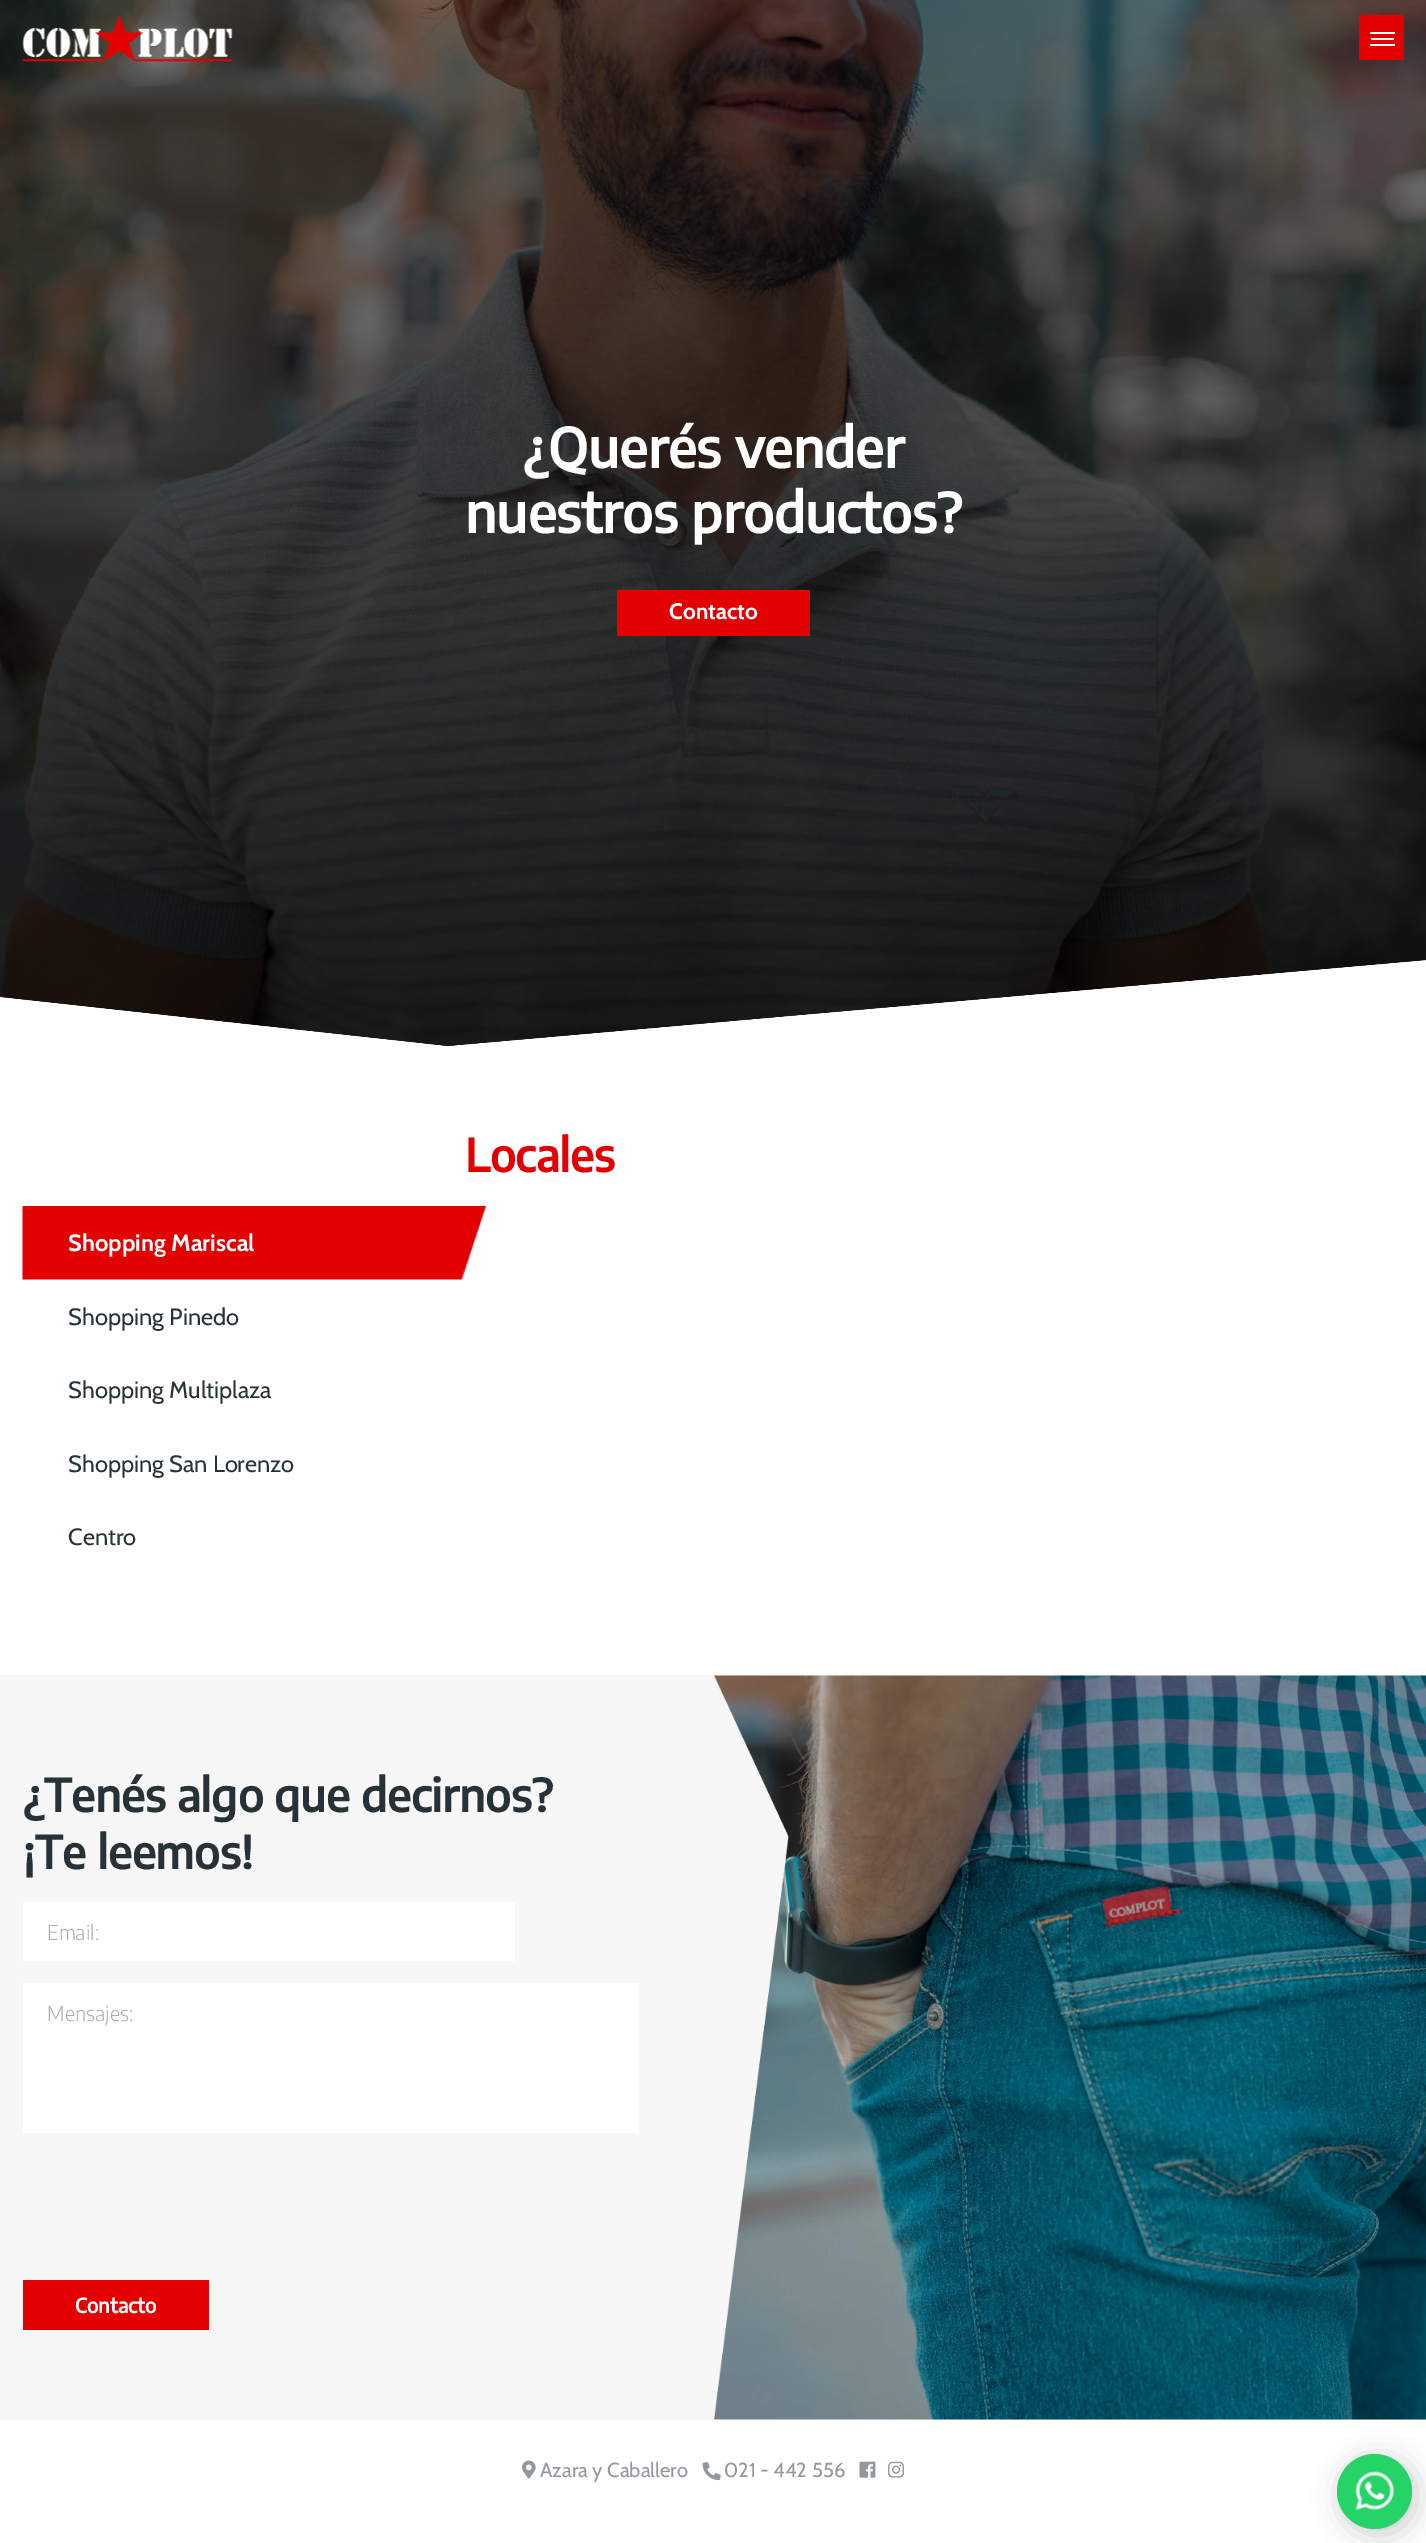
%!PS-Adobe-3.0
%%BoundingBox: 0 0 1426 2543
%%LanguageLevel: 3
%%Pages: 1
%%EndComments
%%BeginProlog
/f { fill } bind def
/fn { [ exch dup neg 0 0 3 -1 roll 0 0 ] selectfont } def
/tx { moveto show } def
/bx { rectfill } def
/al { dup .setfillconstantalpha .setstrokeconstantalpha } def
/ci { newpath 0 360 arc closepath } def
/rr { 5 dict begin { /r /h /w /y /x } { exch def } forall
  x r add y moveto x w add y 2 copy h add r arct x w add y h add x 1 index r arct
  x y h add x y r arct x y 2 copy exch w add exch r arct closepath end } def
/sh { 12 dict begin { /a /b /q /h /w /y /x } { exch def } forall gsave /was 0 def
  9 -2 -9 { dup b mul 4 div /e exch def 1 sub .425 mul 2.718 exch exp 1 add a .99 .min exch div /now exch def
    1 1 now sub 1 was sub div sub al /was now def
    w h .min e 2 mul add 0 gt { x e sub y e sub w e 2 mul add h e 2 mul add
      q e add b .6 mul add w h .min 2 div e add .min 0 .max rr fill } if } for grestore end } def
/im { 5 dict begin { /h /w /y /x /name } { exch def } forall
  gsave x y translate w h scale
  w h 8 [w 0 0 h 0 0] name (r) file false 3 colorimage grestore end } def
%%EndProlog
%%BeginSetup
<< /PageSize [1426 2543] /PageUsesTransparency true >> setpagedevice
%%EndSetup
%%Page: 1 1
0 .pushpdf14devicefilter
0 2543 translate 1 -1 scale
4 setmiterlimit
1 setgray
0 0 1426 2543 bx
(image1.raw) 0 0 1426 1047 im
(image0.raw) 22 15 211 47 im
0.886 0 0 setrgbcolor
1359 15 45 45 bx
1 setgray
1370 32 25 2 bx
1371 38 23 2 bx
1370 44 25 2 bx
/EncodeSansCondensed-Bold 54 fn
(¿Querés vender) 523 468 tx
(nuestros productos?) 465 533 tx
0.886 0 0 setrgbcolor
617 590 193 46 bx
/Cabin-Bold 22.5 fn
1 setgray
(Contacto) 669 619 tx
(image2.raw) 0 960 1426 90 im
/EncodeSansCondensed-Bold 45 fn
0.886 0 0 setrgbcolor
(Locales) 465 1172 tx
(image3.raw) 22 1206 464 74 im
/Cabin-Bold 23.6 fn
1 setgray
(Shopping Mariscal) 68 1251 tx
/Cabin-Regular 23.6 fn
0.149 0.196 0.22 setrgbcolor
(Shopping Pinedo) 68 1325 tx
(Shopping Multiplaza) 68 1398 tx
(Shopping San Lorenzo) 68 1472 tx
(Centro) 68 1545 tx
0.969 setgray
0 1675 1426 745 bx
/EncodeSansCondensed-Bold 45 fn
0.149 0.196 0.22 setrgbcolor
(¿Tenés algo que decirnos?) 23 1812 tx
(¡Te leemos!) 23 1869 tx
1 setgray
23 1902 492 59 bx
/EncodeSansCondensed-Light 20.25 fn
0.659 0.678 0.686 setrgbcolor
(Email:) 47 1940 tx
1 setgray
23 1983 616 150 bx
0.659 0.678 0.686 setrgbcolor
(Mensajes:) 47 2021 tx
0.886 0 0 setrgbcolor
23 2280 186 50 bx
/EncodeSansCondensed-Bold 20 fn
1 setgray
(Contacto) 75 2313 tx
(image4.raw) 714 1675 712 745 im
(image5.raw) 714 1675 75 744 im
(image6.raw) 522 2460 14 19 im
/Cabin-Regular 20.25 fn
0.576 0.6 0.612 setrgbcolor
(Azara y Caballero) 540 2477 tx
(image7.raw) 702 2462 19 19 im
(021 - 442 556) 724 2477 tx
(image8.raw) 859 2461 17 17 im
(image9.raw) 888 2461 16 17 im
0 setgray
1341 2459 75 75 37.5 13.5 0.2 sh
0.145 0.827 0.4 setrgbcolor
1374.5 2491.5 37.5 ci f
(image10.raw) 1355 2471 39 39 im
.poppdf14devicefilter showpage
%%EOF
